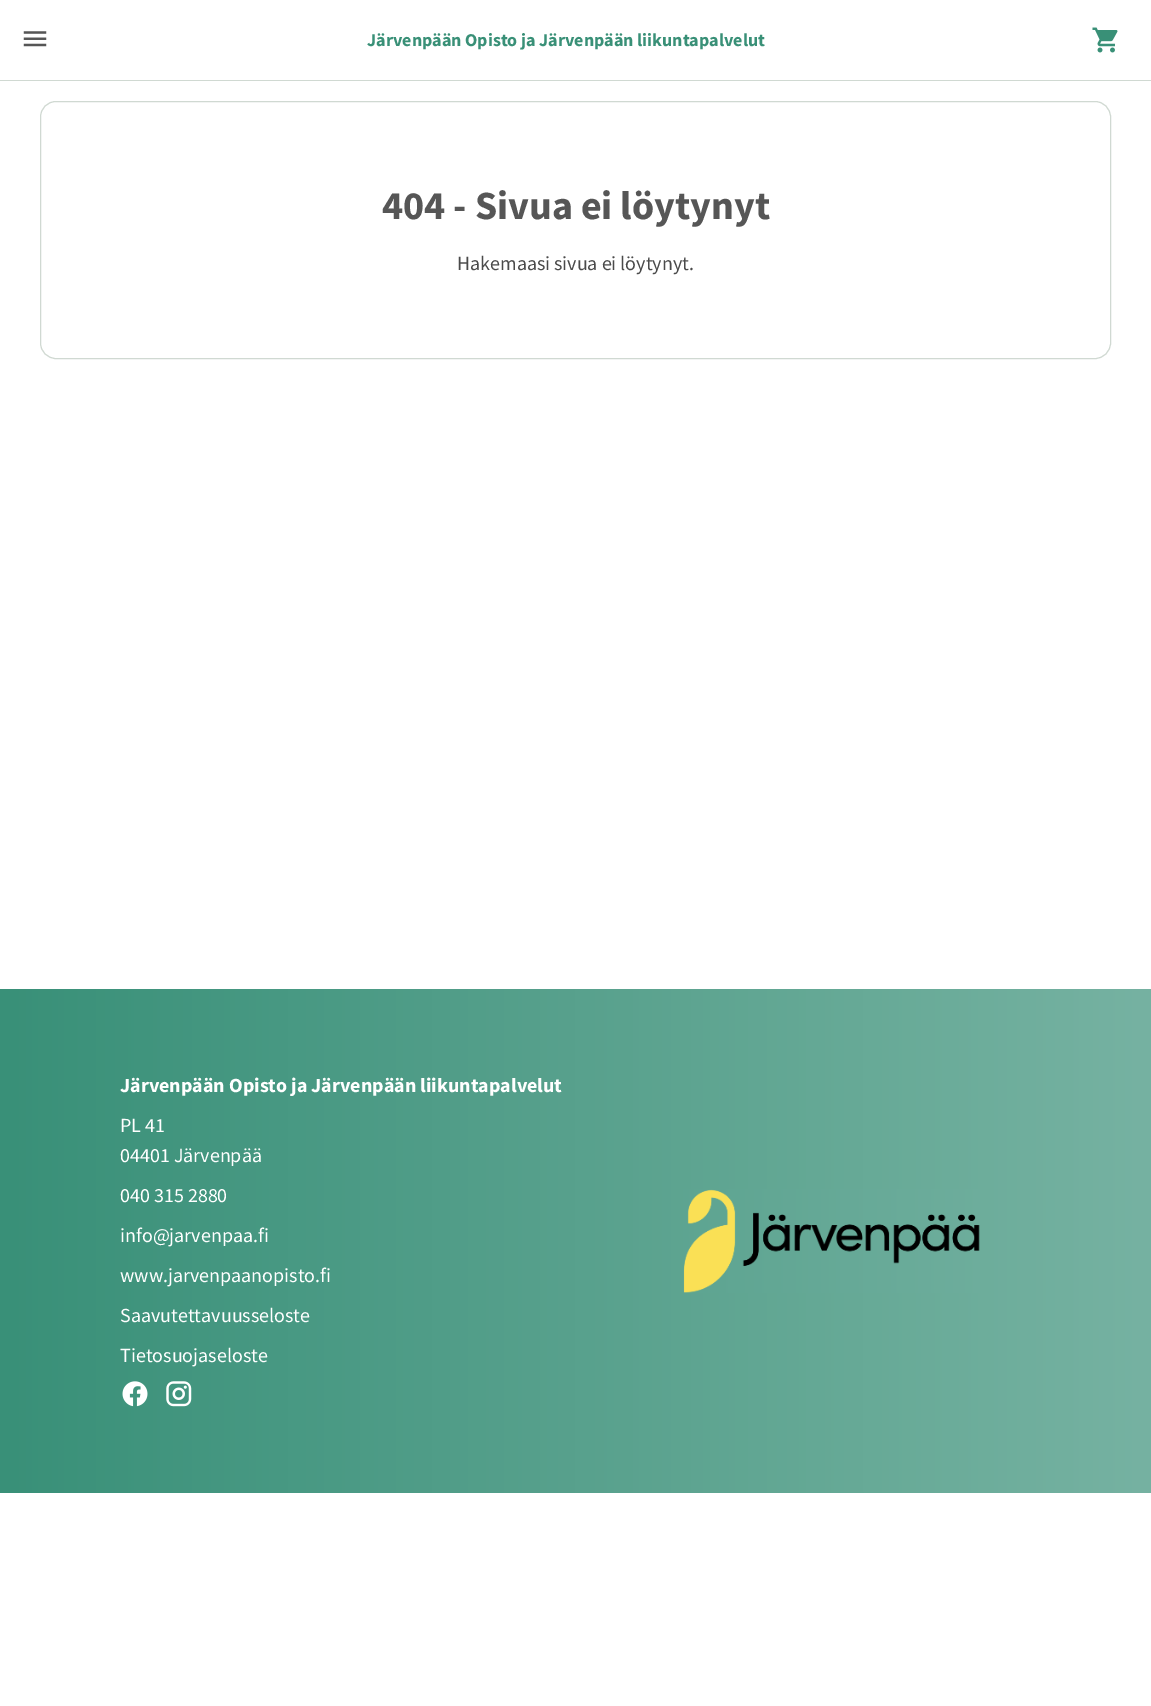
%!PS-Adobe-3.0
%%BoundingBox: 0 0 1151 1706
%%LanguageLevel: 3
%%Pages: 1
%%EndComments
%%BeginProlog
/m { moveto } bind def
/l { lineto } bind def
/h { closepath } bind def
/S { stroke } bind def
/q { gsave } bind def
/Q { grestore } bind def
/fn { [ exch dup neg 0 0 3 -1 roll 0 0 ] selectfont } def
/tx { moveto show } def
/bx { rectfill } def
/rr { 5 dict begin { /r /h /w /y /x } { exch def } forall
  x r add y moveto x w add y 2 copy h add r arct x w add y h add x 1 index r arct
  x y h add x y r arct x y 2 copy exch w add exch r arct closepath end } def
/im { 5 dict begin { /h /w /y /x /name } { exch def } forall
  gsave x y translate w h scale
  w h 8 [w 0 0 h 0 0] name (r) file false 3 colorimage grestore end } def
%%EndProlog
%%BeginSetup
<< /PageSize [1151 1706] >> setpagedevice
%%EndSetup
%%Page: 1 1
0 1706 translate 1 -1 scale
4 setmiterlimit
1 setgray
0 0 1151 1706 bx
0.816 0.851 0.824 setrgbcolor
0 80 1151 1 bx
(image0.raw) 23 31 24 16 im
/SourceSansPro-Bold 18 fn
0.224 0.565 0.467 setrgbcolor
(Järvenpään Opisto ja Järvenpään liikuntapalvelut) 367 46 tx
(image1.raw) 1092 27 26 26 im
0.816 0.851 0.824 setrgbcolor
40.5 101.5 1070 257 15.5 rr S
/SourceSansPro-Bold 40 fn
0.337 setgray
(404 - Sivua ei löytynyt) 382 219 tx
/SourceSansPro-Regular 20 fn
0.29 setgray
(Hakemaasi sivua ei löytynyt.) 457 270 tx
q 0 989 m 1151 989 l 1151 1493 l 0 1493 l h clip newpath
<< /ShadingType 2 /ColorSpace /DeviceRGB /Coords [1151 1241 0 1241] /Extend [true true] /Function << /FunctionType 2 /Domain [0 1] /C0 [0.463 0.698 0.635] /C1 [0.224 0.565 0.471] /N 1 >> >> shfill Q
/SourceSansPro-Bold 20 fn
1 setgray
(Järvenpään Opisto ja Järvenpään liikuntapalvelut) 120 1092 tx
/SourceSansPro-Regular 20 fn
(PL 41) 120 1132 tx
(04401 Järvenpää) 120 1162 tx
(040 315 2880) 120 1202 tx
(info@jarvenpaa.fi) 120 1242 tx
(www.jarvenpaanopisto.fi) 120 1282 tx
(Saavutettavuusseloste) 120 1322 tx
(Tietosuojaseloste) 120 1362 tx
(image2.raw) 122 1381 26 26 im
(image3.raw) 166 1381 26 26 im
(image4.raw) 683 1189 297 104 im
showpage
%%EOF
